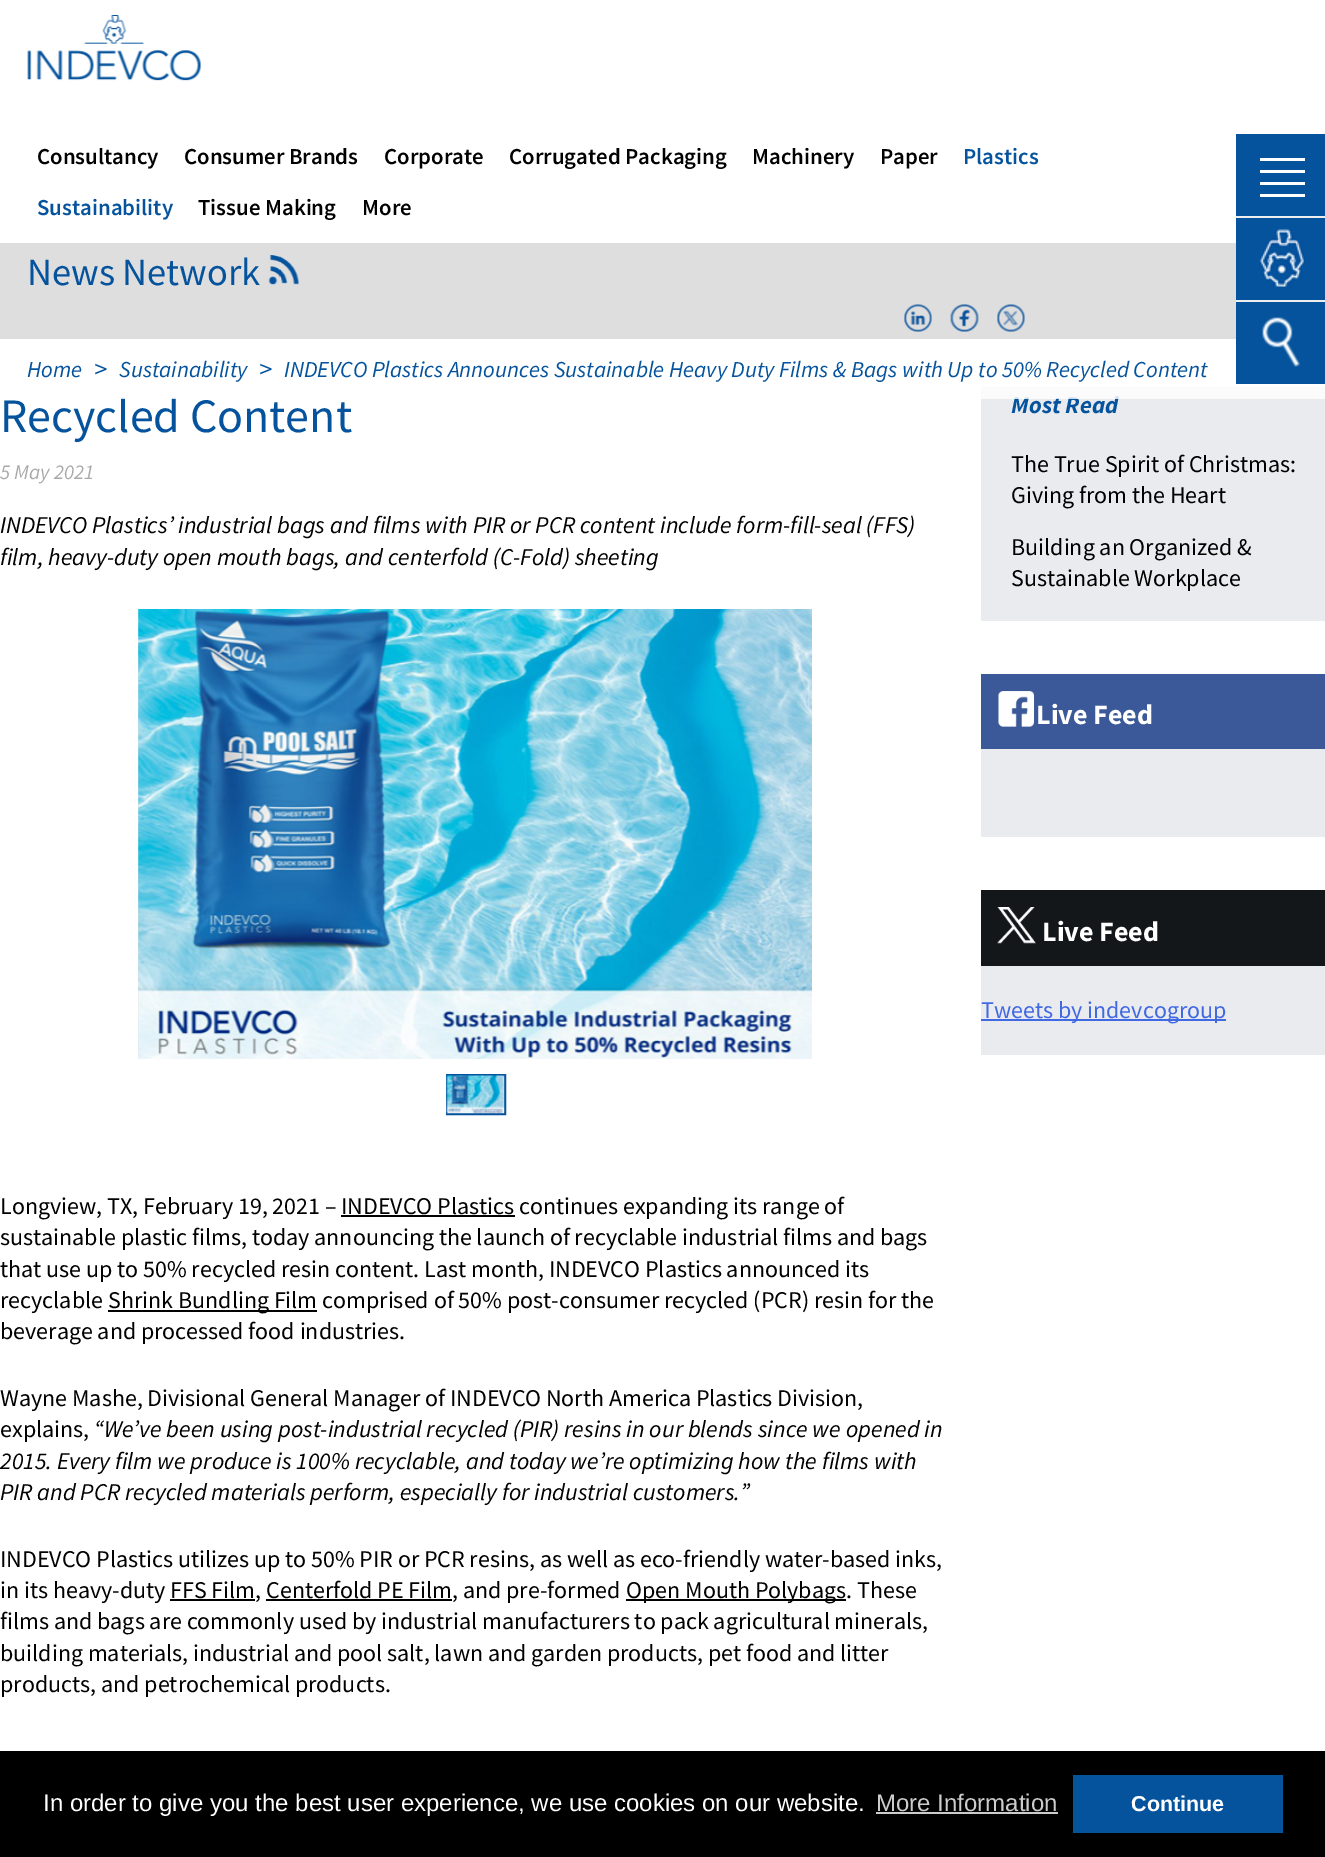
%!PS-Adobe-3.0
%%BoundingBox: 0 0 1325 1857
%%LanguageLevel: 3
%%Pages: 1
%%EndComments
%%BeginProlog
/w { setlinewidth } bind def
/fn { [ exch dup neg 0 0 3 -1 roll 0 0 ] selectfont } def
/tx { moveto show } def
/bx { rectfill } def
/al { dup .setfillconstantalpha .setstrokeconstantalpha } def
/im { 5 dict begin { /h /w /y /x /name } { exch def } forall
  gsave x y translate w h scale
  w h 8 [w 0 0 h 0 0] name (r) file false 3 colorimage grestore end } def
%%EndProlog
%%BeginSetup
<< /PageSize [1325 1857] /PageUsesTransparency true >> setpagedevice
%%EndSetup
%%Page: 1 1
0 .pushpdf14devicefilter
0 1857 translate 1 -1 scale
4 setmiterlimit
1 setgray
0 0 1325 1857 bx
/SourceSansPro-Regular 48 fn
0.02 0.325 0.612 setrgbcolor
(Recycled Content) 0 432 tx
0.918 0.922 0.937 setrgbcolor
981 387 344 234 bx
/SourceSansPro-BoldItalic 24 fn
0.02 0.325 0.612 setrgbcolor
(Most Read) 1011 413 tx
0.8 al
1 setgray
121 387 1204 12 bx
1 al
(image0.raw) 27 15 175 66 im
/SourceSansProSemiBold-SemiBold 22.8 fn
0 setgray
(Consultancy) 37 164 tx
(Consumer Brands) 184 164 tx
(Corporate) 384 164 tx
(Corrugated Packaging) 509 164 tx
(Machinery) 752 164 tx
(Paper) 880 164 tx
0.02 0.325 0.612 setrgbcolor
(Plastics) 963 164 tx
(Sustainability) 37 215 tx
0 setgray
(Tissue Making) 198 215 tx
(More) 362 215 tx
0.02 0.325 0.612 setrgbcolor
1236 134 89 82 bx
1 setgray
1260 158 45 3 bx
1260 170 45 3 bx
1260 182 45 3 bx
1260 194 45 3 bx
0.02 0.325 0.612 setrgbcolor
1236 218 89 82 bx
0.933 setgray
1236 216 89 2 bx
(image1.raw) 1259 229 46 58 im
0.02 0.325 0.612 setrgbcolor
1236 302 89 82 bx
0.933 setgray
1236 300 89 2 bx
(image2.raw) 1262 317 38 50 im
0.871 setgray
0 243 1236 96 bx
/SourceSansPro-Regular 38.5 fn
0.02 0.325 0.612 setrgbcolor
(News Network) 27 285 tx
(image3.raw) 268 255 31 30 im
(image4.raw) 904 304 28 28 im
(image5.raw) 950 304 29 28 im
(image6.raw) 997 304 28 28 im
/SourceSansPro-Italic 22.8 fn
(Home) 27 377 tx
/SourceSansPro-Italic 27 fn
(>) 94 378 tx
/SourceSansPro-Italic 22.8 fn
(Sustainability) 119 377 tx
/SourceSansPro-Italic 27 fn
(>) 259 378 tx
/SourceSansPro-Italic 22.8 fn
(INDEVCO Plastics Announces Sustainable Heavy Duty Films & Bags with Up to 50% Recycled Content) 284 377 tx
/SourceSansPro-Italic 21 fn
0.667 setgray
(5 May 2021) 0 479 tx
/SourceSansPro-Italic 24 fn
0 setgray
(INDEVCO Plastics’ industrial bags and films with PIR or PCR content include form-fill-seal \(FFS\)) 0 533 tx
(film, heavy-duty open mouth bags, and centerfold \(C-Fold\) sheeting) 0 565 tx
(image7.raw) 138 609 674 450 im
0.02 0.325 0.612 setrgbcolor
2 w
447 1075 58 39 rectstroke
(image8.raw) 446 1075 59 39 im
/SourceSansPro-Regular 24 fn
0 setgray
(Longview, TX, February 19, 2021 – INDEVCO Plastics continues expanding its range of) 0 1214 tx
341 1215 174 2 bx
(sustainable plastic films, today announcing the launch of recyclable industrial films and bags) 0 1245 tx
(that use up to 50% recycled resin content. Last month, INDEVCO Plastics announced its) 0 1277 tx
(recyclable) 0 1308 tx
108 1310 209 2 bx
(Shrink Bundling Film comprised of 50% post-consumer recycled \(PCR\) resin for the) 108 1308 tx
(beverage and processed food industries.) 0 1339 tx
(Wayne Mashe, Divisional General Manager of INDEVCO North America Plastics Division,) 0 1406 tx
(explains,) 0 1437 tx
/SourceSansPro-Italic 24 fn
(“We’ve been using post-industrial recycled \(PIR\) resins in our blends since we opened in) 94 1437 tx
(2015. Every film we produce is 100% recyclable, and today we’re optimizing how the films with) 0 1469 tx
(PIR and PCR recycled materials perform, especially for industrial customers.”) 0 1500 tx
/SourceSansPro-Regular 24 fn
(INDEVCO Plastics utilizes up to 50% PIR or PCR resins, as well as eco-friendly water-based inks,) 0 1567 tx
(in its heavy-duty FFS Film, Centerfold PE Film, and pre-formed) 0 1598 tx
626 1599 220 2 bx
(Open Mouth Polybags. These) 626 1598 tx
170 1599 85 2 bx
266 1599 186 2 bx
(films and bags are commonly used by industrial manufacturers to pack agricultural minerals,) 0 1629 tx
(building materials, industrial and pool salt, lawn and garden products, pet food and litter) 0 1661 tx
(products, and petrochemical products.) 0 1692 tx
(The True Spirit of Christmas:) 1011 472 tx
(Giving from the Heart) 1011 503 tx
(Building an Organized &) 1011 555 tx
(Sustainable Workplace) 1011 586 tx
0.918 0.922 0.937 setrgbcolor
981 749 344 88 bx
0.231 0.349 0.596 setrgbcolor
981 674 344 75 bx
(image9.raw) 998 691 37 36 im
/SourceSansPro-Bold 28 fn
1 setgray
(Live Feed) 1036 724 tx
0.918 0.922 0.937 setrgbcolor
981 966 344 89 bx
0.078 0.09 0.102 setrgbcolor
981 890 344 76 bx
(image10.raw) 997 907 39 37 im
1 setgray
(Live Feed) 1042 941 tx
0.255 0.412 0.882 setrgbcolor
981 1019 245 2 bx
/SourceSansPro-Regular 24 fn
(Tweets by indevcogroup) 981 1018 tx
0 setgray
0 1751 1325 106 bx
/LiberationSans-Regular 24 fn
1 setgray
(In order to give you the best user experience, we use cookies on our website.) 43 1811 tx
0.8 setgray
(More Information) 876 1811 tx
876 1812 182 2 bx
0.02 0.325 0.612 setrgbcolor
1073 1775 210 58 bx
/LiberationSans-Bold 21.5 fn
1 setgray
(Continue) 1131 1811 tx
.poppdf14devicefilter showpage
%%EOF
